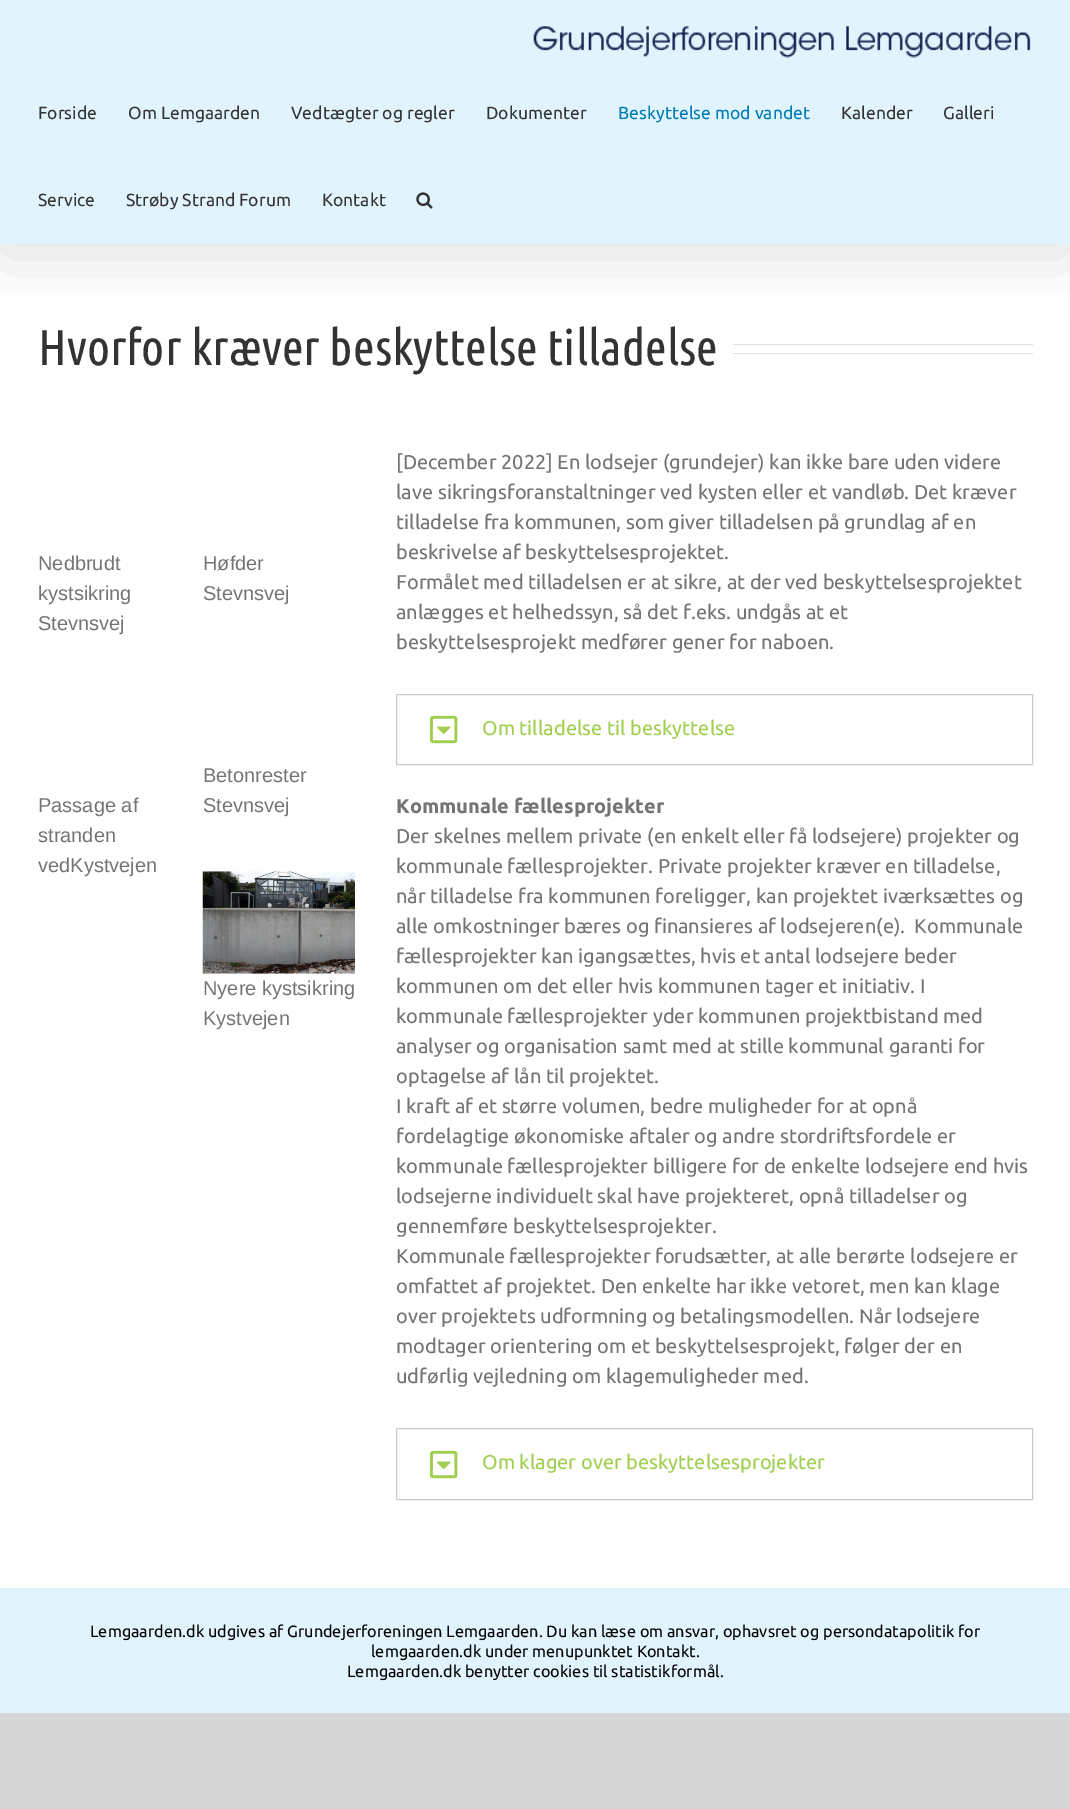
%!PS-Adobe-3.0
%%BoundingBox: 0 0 1070 1809
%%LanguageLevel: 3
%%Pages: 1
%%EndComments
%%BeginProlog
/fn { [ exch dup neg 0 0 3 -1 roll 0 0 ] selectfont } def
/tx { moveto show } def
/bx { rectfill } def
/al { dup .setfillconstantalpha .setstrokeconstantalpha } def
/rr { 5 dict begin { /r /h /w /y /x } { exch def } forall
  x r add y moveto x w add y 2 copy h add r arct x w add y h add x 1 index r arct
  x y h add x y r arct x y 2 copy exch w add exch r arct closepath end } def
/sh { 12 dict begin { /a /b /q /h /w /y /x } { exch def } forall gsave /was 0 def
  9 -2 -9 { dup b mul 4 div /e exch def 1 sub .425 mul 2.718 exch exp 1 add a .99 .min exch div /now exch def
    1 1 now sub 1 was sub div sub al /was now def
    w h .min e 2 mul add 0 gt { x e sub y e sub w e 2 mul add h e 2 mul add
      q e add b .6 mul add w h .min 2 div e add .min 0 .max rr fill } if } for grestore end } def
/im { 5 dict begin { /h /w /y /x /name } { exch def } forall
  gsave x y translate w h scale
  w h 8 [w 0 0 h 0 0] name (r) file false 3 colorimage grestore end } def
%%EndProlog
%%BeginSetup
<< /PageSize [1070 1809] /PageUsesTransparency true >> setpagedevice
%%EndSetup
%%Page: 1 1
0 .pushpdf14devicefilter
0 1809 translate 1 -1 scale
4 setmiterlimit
0.843 0.839 0.839 setrgbcolor
0 0 1070 1809 bx
1 setgray
0 244 1070 1344 bx
0.878 0.871 0.871 setrgbcolor
733 344 300 1 bx
0 setgray
3 15 1065 239 0 31 0.14 sh
0.882 0.957 0.992 setrgbcolor
0 0 1070 244 bx
(image0.raw) 533 26 498 32 im
/Ubuntu-Regular 17.5 fn
0.2 setgray
(Forside) 38 119 tx
(Om Lemgaarden) 128 119 tx
(Vedtægter og regler) 291 119 tx
(Dokumenter) 486 119 tx
0 0.482 0.71 setrgbcolor
(Beskyttelse mod vandet) 618 119 tx
0.2 setgray
(Kalender) 841 119 tx
(Galleri) 943 119 tx
(Service) 38 206 tx
(Strøby Strand Forum) 126 206 tx
(Kontakt) 322 206 tx
(image1.raw) 416 192 17 17 im
/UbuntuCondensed-Regular 50 fn
(Hvorfor kræver beskyttelse tilladelse) 38 365 tx
0.878 0.871 0.871 setrgbcolor
733 353 300 1 bx
/LiberationSans-Regular 20 fn
0.455 setgray
(Nedbrudt) 38 570 tx
(kystsikring) 38 600 tx
(Stevnsvej) 38 630 tx
(Høfder) 203 570 tx
(Stevnsvej) 203 600 tx
(Passage af) 38 812 tx
(stranden) 38 842 tx
(vedKystvejen) 38 872 tx
(Betonrester) 203 782 tx
(Stevnsvej) 203 812 tx
(image2.raw) 202 871 153 103 im
(Nyere kystsikring) 203 995 tx
(Kystvejen) 203 1025 tx
/Ubuntu-Regular 20 fn
([December 2022] En lodsejer \(grundejer\) kan ikke bare uden videre) 396 469 tx
(lave sikringsforanstaltninger ved kysten eller et vandløb. Det kræver) 396 499 tx
(tilladelse fra kommunen, som giver tilladelsen på grundlag af en) 396 529 tx
(beskrivelse af beskyttelsesprojektet.) 396 559 tx
(Formålet med tilladelsen er at sikre, at der ved beskyttelsesprojektet) 396 589 tx
(anlægges et helhedssyn, så det f.eks. undgås at et) 396 619 tx
(beskyttelsesprojekt medfører gener for naboen.) 396 649 tx
0.8 setgray
396.5 694.5 636 70 rectstroke
(image3.raw) 430 715 28 29 im
0.627 0.808 0.306 setrgbcolor
(Om tilladelse til beskyttelse) 482 735 tx
/Ubuntu-Bold 20 fn
0.455 setgray
(Kommunale fællesprojekter) 396 813 tx
/Ubuntu-Regular 20 fn
(Der skelnes mellem private \(en enkelt eller få lodsejere\) projekter og) 396 843 tx
(kommunale fællesprojekter. Private projekter kræver en tilladelse,) 396 873 tx
(når tilladelse fra kommunen foreligger, kan projektet iværksættes og) 396 903 tx
(alle omkostninger bæres og finansieres af lodsejeren\(e\).  Kommunale) 396 933 tx
(fællesprojekter kan igangsættes, hvis et antal lodsejere beder) 396 963 tx
(kommunen om det eller hvis kommunen tager et initiativ. I) 396 993 tx
(kommunale fællesprojekter yder kommunen projektbistand med) 396 1023 tx
(analyser og organisation samt med at stille kommunal garanti for) 396 1053 tx
(optagelse af lån til projektet.) 396 1083 tx
(I kraft af et større volumen, bedre muligheder for at opnå) 396 1113 tx
(fordelagtige økonomiske aftaler og andre stordriftsfordele er) 396 1143 tx
(kommunale fællesprojekter billigere for de enkelte lodsejere end hvis) 396 1173 tx
(lodsejerne individuelt skal have projekteret, opnå tilladelser og) 396 1203 tx
(gennemføre beskyttelsesprojekter.) 396 1233 tx
(Kommunale fællesprojekter forudsætter, at alle berørte lodsejere er) 396 1263 tx
(omfattet af projektet. Den enkelte har ikke vetoret, men kan klage) 396 1293 tx
(over projektets udformning og betalingsmodellen. Når lodsejere) 396 1323 tx
(modtager orientering om et beskyttelsesprojekt, følger der en) 396 1353 tx
(udførlig vejledning om klagemuligheder med.) 396 1383 tx
0.8 setgray
396.5 1428.5 636 71 rectstroke
(image3.raw) 430 1450 28 29 im
0.627 0.808 0.306 setrgbcolor
(Om klager over beskyttelsesprojekter) 482 1469 tx
0.882 0.957 0.992 setrgbcolor
0 1588 1070 125 bx
/Ubuntu-Regular 16.25 fn
0 setgray
(Lemgaarden.dk udgives af Grundejerforeningen Lemgaarden. Du kan læse om ansvar, ophavsret og persondatapolitik for) 90 1637 tx
(lemgaarden.dk under menupunktet Kontakt.) 371 1657 tx
(Lemgaarden.dk benytter cookies til statistikformål.) 347 1677 tx
.poppdf14devicefilter showpage
%%EOF
